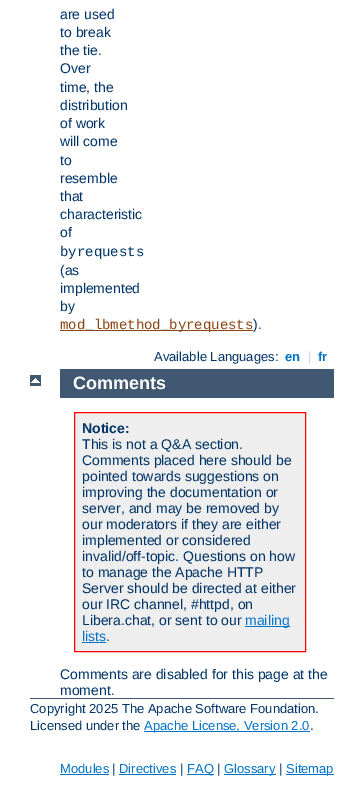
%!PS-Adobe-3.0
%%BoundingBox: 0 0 348 804
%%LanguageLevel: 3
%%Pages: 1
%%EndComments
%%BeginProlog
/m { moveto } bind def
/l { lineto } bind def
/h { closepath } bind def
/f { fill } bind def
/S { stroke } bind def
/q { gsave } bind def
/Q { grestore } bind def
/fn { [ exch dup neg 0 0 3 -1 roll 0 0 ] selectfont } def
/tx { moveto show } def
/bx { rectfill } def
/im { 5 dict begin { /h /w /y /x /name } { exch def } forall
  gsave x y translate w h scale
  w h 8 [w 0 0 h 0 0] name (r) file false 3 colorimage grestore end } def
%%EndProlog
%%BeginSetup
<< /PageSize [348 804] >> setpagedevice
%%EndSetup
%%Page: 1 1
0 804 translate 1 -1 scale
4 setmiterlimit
1 setgray
0 0 348 804 bx
/LiberationSans-Regular 14 fn
0 0.2 0.4 setrgbcolor
(are used) 60 19 tx
(to break) 60 37 tx
(the tie.) 60 55 tx
(Over) 60 73 tx
(time, the) 60 92 tx
(distribution) 60 110 tx
(of work) 60 128 tx
(will come) 60 146 tx
(to) 60 165 tx
(resemble) 60 183 tx
(that) 60 201 tx
(characteristic) 60 219 tx
(of) 60 237 tx
/LiberationMono-Regular 14 fn
(byrequests) 60 256 tx
/LiberationSans-Regular 14 fn
(\(as) 60 275 tx
(implemented) 60 293 tx
(by) 60 311 tx
0.545 0.271 0.075 setrgbcolor
60 330 193 1 bx
/LiberationMono-Regular 14 fn
(mod_lbmethod_byrequests) 60 329 tx
/LiberationSans-Regular 14 fn
0 0.2 0.4 setrgbcolor
(\).) 253 329 tx
/LiberationSans-Regular 13 fn
(Available Languages:) 154 361 tx
/LiberationSans-Bold 13 fn
0 0.451 0.78 setrgbcolor
(en) 285 361 tx
/LiberationSans-Regular 13 fn
0.8 setgray
(|) 308 361 tx
/LiberationSans-Bold 13 fn
0 0.451 0.78 setrgbcolor
(fr) 318 361 tx
(image0.raw) 30 375 11 11 im
0.251 0.345 0.443 setrgbcolor
60 369 274 29 bx
/LiberationSans-Bold 18 fn
1 setgray
(Comments) 73 389 tx
0.933 setgray
74.5 412.5 m 305.5 412.5 l 305.5 651.5 l 74.5 651.5 l h q f Q
1 0 0 setrgbcolor
S
/LiberationSans-Bold 14 fn
0 0.2 0.4 setrgbcolor
(Notice:) 82 433 tx
/LiberationSans-Regular 14 fn
(This is not a Q&A section.) 82 449 tx
(Comments placed here should be) 82 465 tx
(pointed towards suggestions on) 82 481 tx
(improving the documentation or) 82 497 tx
(server, and may be removed by) 82 513 tx
(our moderators if they are either) 82 529 tx
(implemented or considered) 82 545 tx
(invalid/off-topic. Questions on how) 82 561 tx
(to manage the Apache HTTP) 82 577 tx
(Server should be directed at either) 82 593 tx
(our IRC channel, #httpd, on) 82 609 tx
(Libera.chat, or sent to our) 82 625 tx
0 0.451 0.78 setrgbcolor
245 626 45 1 bx
(mailing) 245 625 tx
(lists) 82 641 tx
82 642 24 1 bx
0 0.2 0.4 setrgbcolor
(.) 106 641 tx
(Comments are disabled for this page at the) 60 679 tx
(moment.) 60 695 tx
0.251 0.345 0.443 setrgbcolor
30 698 304 1 bx
/LiberationSans-Regular 13 fn
0 0.2 0.4 setrgbcolor
(Copyright 2025 The Apache Software Foundation.) 30 713 tx
(Licensed under the) 30 730 tx
0 0.451 0.78 setrgbcolor
144 731 166 1 bx
(Apache License, Version 2.0) 144 730 tx
0 0.2 0.4 setrgbcolor
(.) 310 730 tx
0 0.451 0.78 setrgbcolor
(Modules) 60 773 tx
60 774 49 1 bx
0 0.2 0.4 setrgbcolor
(|) 112 773 tx
0 0.451 0.78 setrgbcolor
(Directives) 119 773 tx
119 774 57 1 bx
0 0.2 0.4 setrgbcolor
(|) 180 773 tx
0 0.451 0.78 setrgbcolor
187 774 27 1 bx
(FAQ) 187 773 tx
0 0.2 0.4 setrgbcolor
(|) 217 773 tx
0 0.451 0.78 setrgbcolor
224 774 52 1 bx
(Glossary) 224 773 tx
0 0.2 0.4 setrgbcolor
(|) 279 773 tx
0 0.451 0.78 setrgbcolor
286 774 48 1 bx
(Sitemap) 286 773 tx
showpage
%%EOF
